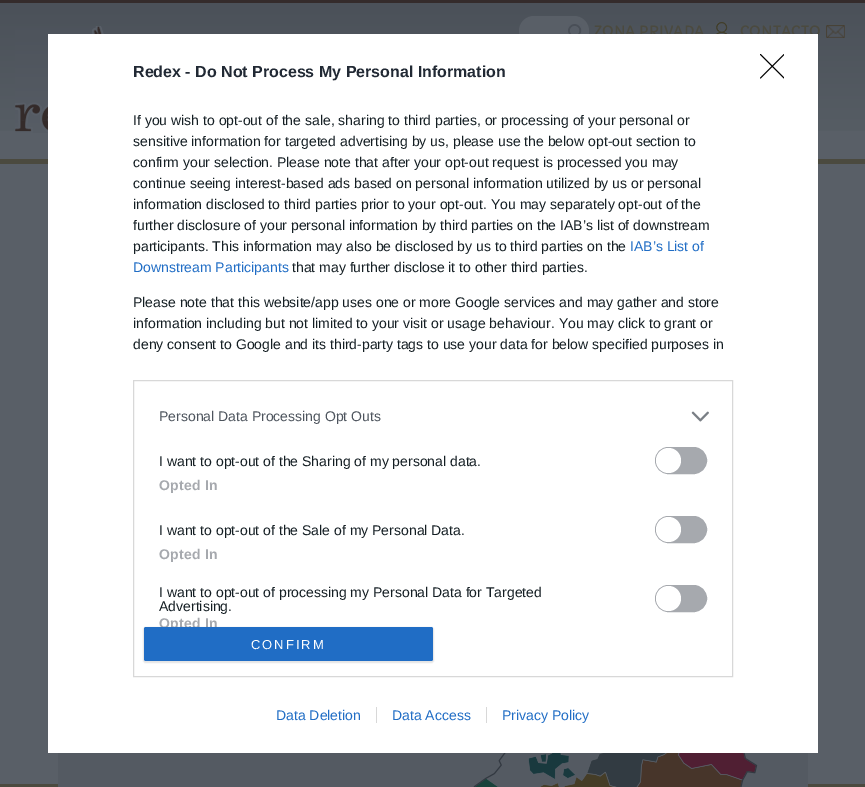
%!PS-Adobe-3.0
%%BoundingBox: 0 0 865 787
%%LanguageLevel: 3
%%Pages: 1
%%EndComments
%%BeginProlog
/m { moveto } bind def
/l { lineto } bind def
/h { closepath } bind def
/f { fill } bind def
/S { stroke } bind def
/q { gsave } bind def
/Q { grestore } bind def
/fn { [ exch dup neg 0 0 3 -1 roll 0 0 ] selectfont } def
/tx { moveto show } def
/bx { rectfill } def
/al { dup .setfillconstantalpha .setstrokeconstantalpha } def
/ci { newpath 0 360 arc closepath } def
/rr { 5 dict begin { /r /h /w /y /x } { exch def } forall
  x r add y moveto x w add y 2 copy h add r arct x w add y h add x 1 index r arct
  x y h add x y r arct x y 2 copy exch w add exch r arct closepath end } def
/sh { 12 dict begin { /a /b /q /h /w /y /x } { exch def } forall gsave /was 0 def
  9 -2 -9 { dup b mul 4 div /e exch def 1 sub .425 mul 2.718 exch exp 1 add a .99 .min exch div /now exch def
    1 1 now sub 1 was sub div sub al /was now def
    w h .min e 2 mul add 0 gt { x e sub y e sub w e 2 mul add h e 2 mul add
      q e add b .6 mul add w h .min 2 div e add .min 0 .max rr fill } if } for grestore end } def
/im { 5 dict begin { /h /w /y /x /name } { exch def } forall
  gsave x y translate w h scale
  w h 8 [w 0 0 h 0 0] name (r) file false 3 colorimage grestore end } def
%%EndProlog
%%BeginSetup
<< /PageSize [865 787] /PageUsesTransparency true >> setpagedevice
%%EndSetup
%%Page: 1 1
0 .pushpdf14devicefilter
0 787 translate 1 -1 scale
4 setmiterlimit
0.349 0.373 0.404 setrgbcolor
0 0 865 787 bx
0.204 0.169 0.169 setrgbcolor
0 0 865 3 bx
0.294 0.29 0.247 setrgbcolor
0 784 865 3 bx
q 0 3 m 865 3 l 865 131 l 0 131 l h clip newpath
<< /ShadingType 2 /ColorSpace /DeviceRGB /Coords [433 3 433 159] /Extend [true true] /Function << /FunctionType 2 /Domain [0 1] /C0 [0.294 0.318 0.349] /C1 [0.349 0.373 0.404] /N 1 >> >> shfill Q
0 159 865 5 bx
(image0.raw) 15 26 89 107 im
0.349 0.373 0.404 setrgbcolor
519 16 70 30 15 rr f
(image1.raw) 568 24 14 10 im
(image2.raw) 716 22 12 12 im
/Capriola-Regular 14 fn
0.294 0.29 0.247 setrgbcolor
(ZONA PRIVADA) 594 36 tx
(image3.raw) 826 25 19 13 im
(CONTACTO) 740 36 tx
0.329 0.353 0.384 setrgbcolor
58 753 750 34 bx
(image4.raw) 473 753 285 34 im
1 setgray
48 34 770 719 bx
/LiberationSans-Bold 16 fn
0.129 0.161 0.204 setrgbcolor
(Redex - Do Not Process My Personal Information) 133 77 tx
/LiberationSans-Regular 14 fn
0.078 0.118 0.137 setrgbcolor
(If you wish to opt-out of the sale, sharing to third parties, or processing of your personal or) 133 125 tx
(sensitive information for targeted advertising by us, please use the below opt-out section to) 133 146 tx
(confirm your selection. Please note that after your opt-out request is processed you may) 133 167 tx
(continue seeing interest-based ads based on personal information utilized by us or personal) 133 188 tx
(information disclosed to third parties prior to your opt-out. You may separately opt-out of the) 133 209 tx
(further disclosure of your personal information by third parties on the IAB’s list of downstream) 133 230 tx
(participants. This information may also be disclosed by us to third parties on the) 133 251 tx
0.125 0.427 0.773 setrgbcolor
(IAB’s List of) 630 251 tx
(Downstream Participants) 133 272 tx
0.078 0.118 0.137 setrgbcolor
(that may further disclose it to other third parties.) 292 272 tx
(Please note that this website/app uses one or more Google services and may gather and store) 133 307 tx
(information including but not limited to your visit or usage behaviour. You may click to grant or) 133 328 tx
(deny consent to Google and its third-party tags to use your data for below specified purposes in) 133 349 tx
0.847 setgray
133.5 380.5 599 296 rectstroke
0.302 0.329 0.365 setrgbcolor
(Personal Data Processing Opt Outs) 159 421 tx
(image5.raw) 691 411 18 11 im
0.078 0.118 0.137 setrgbcolor
(I want to opt-out of the Sharing of my personal data.) 159 466 tx
0.651 0.663 0.682 setrgbcolor
655.5 447.5 51 26 13 rr q f Q
S
1 setgray
668.5 460.5 12.5 ci f
/LiberationSans-Bold 14 fn
0.651 0.663 0.682 setrgbcolor
159 490 m 0.25 0 (Opted In) ashow
/LiberationSans-Regular 14 fn
0.078 0.118 0.137 setrgbcolor
(I want to opt-out of the Sale of my Personal Data.) 159 535 tx
0.651 0.663 0.682 setrgbcolor
655.5 516.5 51 26 13 rr q f Q
S
1 setgray
668.5 529.5 12.5 ci f
/LiberationSans-Bold 14 fn
0.651 0.663 0.682 setrgbcolor
159 559 m 0.25 0 (Opted In) ashow
/LiberationSans-Regular 14 fn
0.078 0.118 0.137 setrgbcolor
(I want to opt-out of processing my Personal Data for Targeted) 159 597 tx
(Advertising.) 159 611 tx
0.651 0.663 0.682 setrgbcolor
655.5 585.5 51 26 13 rr q f Q
S
1 setgray
668.5 598.5 12.5 ci f
/LiberationSans-Bold 14 fn
0.651 0.663 0.682 setrgbcolor
159 628 m 0.25 0 (Opted In) ashow
0 setgray
143 627 291 36 3 0.5 0.1 sh
0.125 0.427 0.773 setrgbcolor
144 627 289 34 2 rr f
/LiberationSans-Regular 13 fn
1 setgray
251 649 m 2 0 (CONFIRM) ashow
q
760 54 24 25 rectclip
0 setgray
1 setlinecap
1 setlinejoin
760.5 54.5 m 784 78 l 784 54.5 m 760.5 78 l S
Q
/LiberationSans-Regular 14 fn
0.125 0.427 0.773 setrgbcolor
(Data Deletion) 276 720 tx
(Data Access) 392 720 tx
0.847 setgray
376 707 1 16 bx
0.125 0.427 0.773 setrgbcolor
(Privacy Policy) 502 720 tx
0.847 setgray
486 707 1 16 bx
.poppdf14devicefilter showpage
%%EOF
